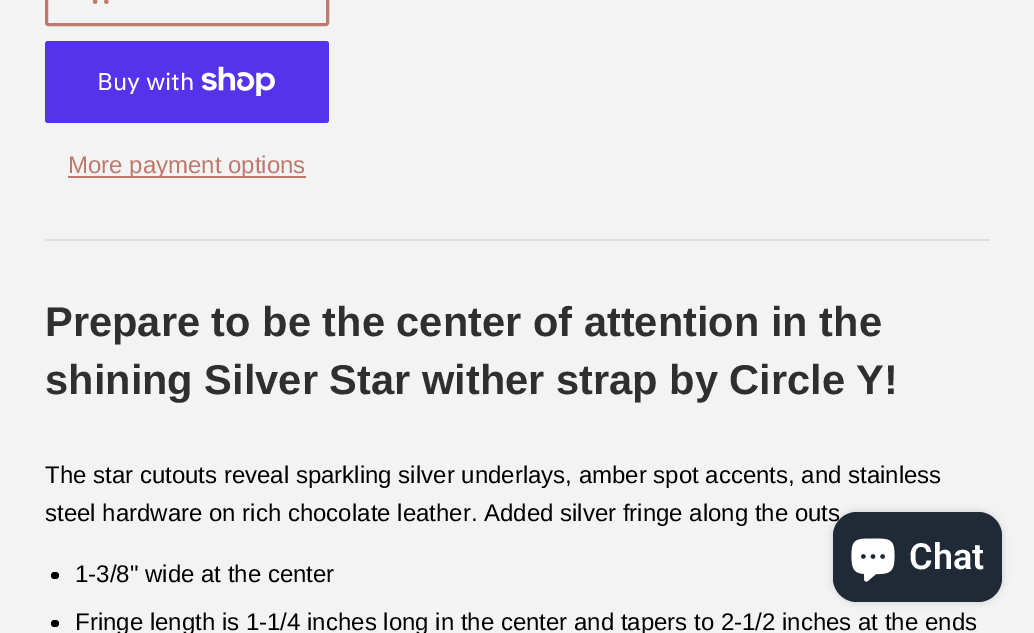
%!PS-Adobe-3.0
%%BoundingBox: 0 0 1034 633
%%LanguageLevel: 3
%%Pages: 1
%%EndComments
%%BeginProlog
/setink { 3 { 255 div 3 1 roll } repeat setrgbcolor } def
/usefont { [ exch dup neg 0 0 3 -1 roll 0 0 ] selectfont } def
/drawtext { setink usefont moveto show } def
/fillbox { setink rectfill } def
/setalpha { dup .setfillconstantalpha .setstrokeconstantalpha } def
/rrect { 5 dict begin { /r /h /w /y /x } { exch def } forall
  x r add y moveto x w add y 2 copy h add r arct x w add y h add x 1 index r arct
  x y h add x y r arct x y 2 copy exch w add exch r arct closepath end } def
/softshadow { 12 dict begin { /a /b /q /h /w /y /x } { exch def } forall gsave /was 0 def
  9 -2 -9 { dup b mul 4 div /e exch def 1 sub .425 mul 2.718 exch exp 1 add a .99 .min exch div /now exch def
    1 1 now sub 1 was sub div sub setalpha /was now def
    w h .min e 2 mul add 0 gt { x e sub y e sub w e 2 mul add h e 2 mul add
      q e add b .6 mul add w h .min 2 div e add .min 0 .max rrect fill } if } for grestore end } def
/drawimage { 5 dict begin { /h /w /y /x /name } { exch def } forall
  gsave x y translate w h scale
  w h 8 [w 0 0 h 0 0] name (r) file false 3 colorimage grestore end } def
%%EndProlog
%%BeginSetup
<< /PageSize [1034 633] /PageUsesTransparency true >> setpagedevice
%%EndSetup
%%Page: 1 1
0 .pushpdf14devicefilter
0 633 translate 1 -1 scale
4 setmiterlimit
0 0 1034 633 243 243 243 fillbox
191 120 108 setink
3 setlinewidth
46.5 -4.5 281 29 1.5 rrect stroke
(assets/img1.rgb) 92 0 17 4 drawimage
84 51 235 setink
45 41 284 82 3 rrect fill
(Buy with) 97 90 /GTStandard-Regular 24 255 255 255 drawtext
(assets/img2.rgb) 201 66 74 30 drawimage
68 176 238 2 191 120 108 fillbox
(More payment options) 68 173 /LiberationSans-Regular 24 191 120 108 drawtext
45 239 945 2 222 222 222 fillbox
(Prepare to be the center of attention in the) 45 336 /LiberationSans-Bold 41.6 47 47 47 drawtext
(shining Silver Star wither strap by Circle Y!) 45 394 /LiberationSans-Bold 41.6 47 47 47 drawtext
(The star cutouts reveal sparkling silver underlays, amber spot accents, and stainless) 45 483 /LiberationSans-Regular 24 0 0 0 drawtext
(steel hardware on rich chocolate leather. Added silver fringe along the outs) 45 521 /LiberationSans-Regular 24 0 0 0 drawtext
51 572 8 7 3.5 rrect fill
(1-3/8" wide at the center) 75 582 /LiberationSans-Regular 24 0 0 0 drawtext
51 620 8 7 3.5 rrect fill
(Fringe length is 1-1/4 inches long in the center and tapers to 2-1/2 inches at the ends) 75 630 /LiberationSans-Regular 24 0 0 0 drawtext
833 512 169 90 24 4 0.15 softshadow
32 42 54 setink
833 512 169 90 24 rrect fill
(assets/img3.rgb) 851 538 44 44 drawimage
(Chat) 909 569 /Roboto-SemiBold 36 255 255 255 drawtext
.poppdf14devicefilter showpage
%%EOF
